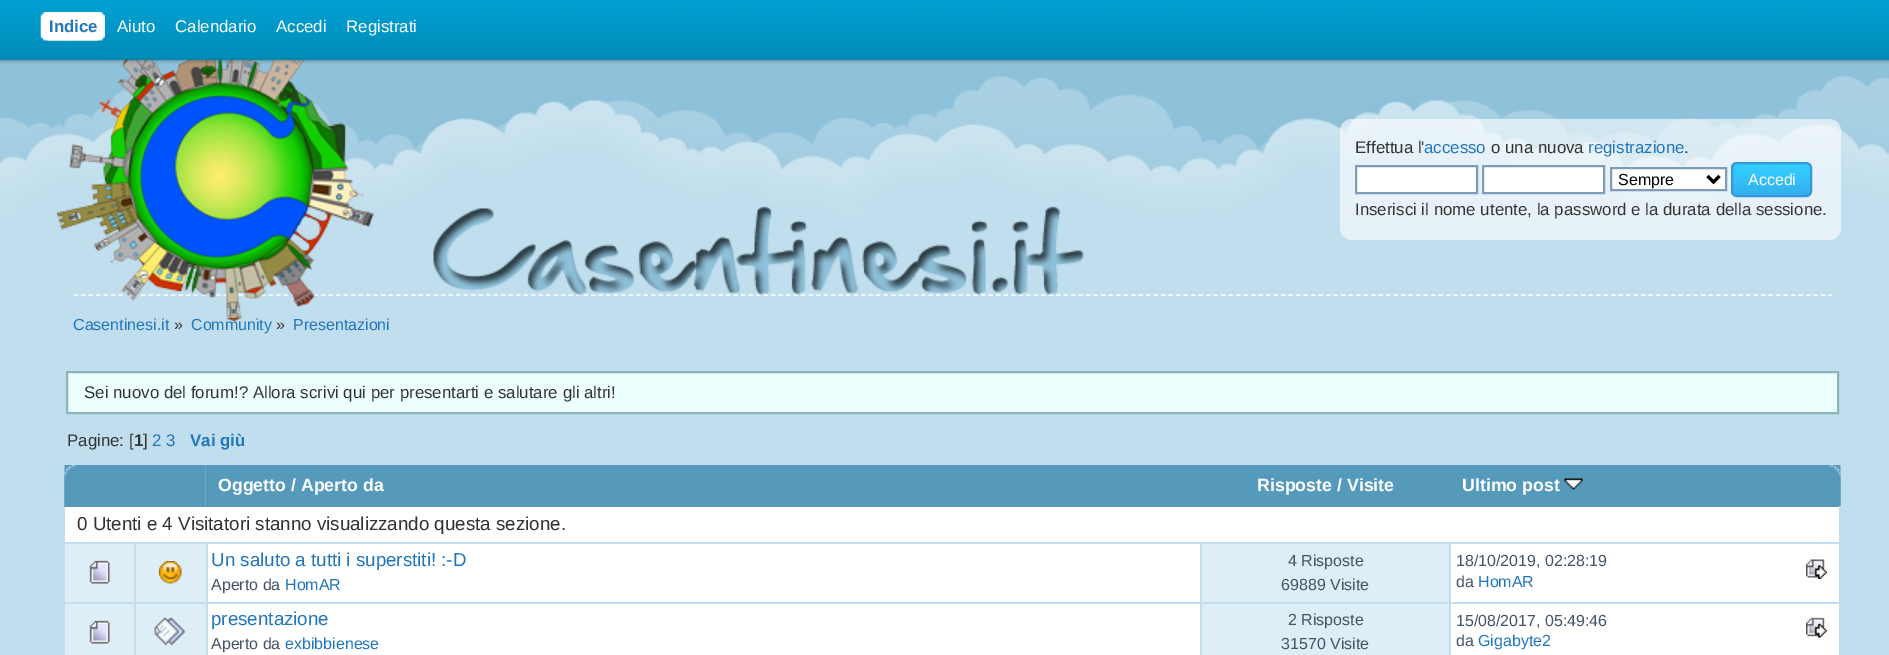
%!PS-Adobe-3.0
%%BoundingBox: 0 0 1889 655
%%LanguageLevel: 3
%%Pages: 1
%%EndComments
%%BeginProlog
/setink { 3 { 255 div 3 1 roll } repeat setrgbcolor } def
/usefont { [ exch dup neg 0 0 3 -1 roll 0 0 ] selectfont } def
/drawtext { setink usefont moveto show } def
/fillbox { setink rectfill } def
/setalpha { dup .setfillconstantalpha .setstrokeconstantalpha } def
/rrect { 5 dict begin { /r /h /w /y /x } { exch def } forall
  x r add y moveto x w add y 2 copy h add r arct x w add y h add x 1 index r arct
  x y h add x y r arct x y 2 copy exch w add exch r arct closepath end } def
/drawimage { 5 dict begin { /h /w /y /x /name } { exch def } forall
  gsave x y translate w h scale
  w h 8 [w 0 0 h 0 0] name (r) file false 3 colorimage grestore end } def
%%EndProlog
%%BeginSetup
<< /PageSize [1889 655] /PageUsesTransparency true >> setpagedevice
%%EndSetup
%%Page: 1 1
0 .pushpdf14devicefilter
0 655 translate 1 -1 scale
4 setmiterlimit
0 0 1889 655 192 222 237 fillbox
(assets/img1.rgb) 0 59 1889 158 drawimage
255 255 255 setink
1.5 setlinewidth
[4.5 3] 0 setdash
73.5 295 moveto 1831.5 295 lineto stroke
(Casentinesi.it) 73 330 /LiberationSans-Regular 16 34 118 187 drawtext
(Community) 191 330 /LiberationSans-Regular 16 34 118 187 drawtext
(Presentazioni) 293 330 /LiberationSans-Regular 16 34 118 187 drawtext
(assets/img5.rgb) 57 59 317 262 drawimage
(assets/img2.rgb) 0 0 1889 64 drawimage
(assets/img3.rgb) 48 12 57 29 drawimage
(assets/img4.rgb) 40 12 58 29 drawimage
(Indice) 49 32 /LiberationSans-Bold 16.85 34 118 187 drawtext
(Aiuto) 117 32 /LiberationSans-Regular 16.85 255 255 255 drawtext
(Calendario) 175 32 /LiberationSans-Regular 16.85 255 255 255 drawtext
(Accedi) 276 32 /LiberationSans-Regular 16.85 255 255 255 drawtext
(Registrati) 346 32 /LiberationSans-Regular 16.85 255 255 255 drawtext
(assets/img6.rgb) 433 206 651 90 drawimage
0.6 setalpha
1340 119 501 121 12 rrect fill
1 setalpha
(Effettua l') 1355 153 /LiberationSans-Regular 16.85 51 51 51 drawtext
(accesso) 1424 153 /LiberationSans-Regular 16.85 34 118 187 drawtext
(o una nuova) 1491 153 /LiberationSans-Regular 16.85 51 51 51 drawtext
(registrazione) 1588 153 /LiberationSans-Regular 16.85 34 118 187 drawtext
(.) 1684 153 /LiberationSans-Regular 16.85 51 51 51 drawtext
255 255 255 setink
1356 166 moveto 1477 166 lineto 1477 193 lineto 1356 193 lineto closepath gsave fill grestore
127 157 185 setink
2 setlinewidth
[] 0 setdash
stroke
255 255 255 setink
1483 166 moveto 1604 166 lineto 1604 193 lineto 1483 193 lineto closepath gsave fill grestore
127 157 185 setink
stroke
255 255 255 setink
1611 168 moveto 1726 168 lineto 1726 190 lineto 1611 190 lineto closepath gsave fill grestore
127 157 185 setink
stroke
0 0 0 setink
3 setlinewidth
1707.5 176 moveto 1713.5 182 lineto 1719.5 176 lineto stroke
(Sempre) 1618 185 /LiberationSans-Regular 16 0 0 0 drawtext
(assets/img7.rgb) 1731 163 81 34 drawimage
51 153 221 setink
2 setlinewidth
1732 163 79 33 5 rrect stroke
(Accedi) 1748 185 /LiberationSans-Regular 16 255 255 255 drawtext
(Inserisci il nome utente, la password e la durata della sessione.) 1355 215 /LiberationSans-Regular 16.85 51 51 51 drawtext
(») 174 330 /LiberationSans-Regular 16 51 51 51 drawtext
(») 276 330 /LiberationSans-Regular 16 51 51 51 drawtext
237 254 255 setink
67 372 moveto 1838 372 lineto 1838 413 lineto 67 413 lineto closepath gsave fill grestore
137 183 185 setink
stroke
(Sei nuovo del forum!? Allora scrivi qui per presentarti e salutare gli altri!) 84 398 /LiberationSans-Regular 16.85 51 51 51 drawtext
(Pagine: [) 67 446 /LiberationSans-Regular 16.85 51 51 51 drawtext
(1) 134 446 /LiberationSans-Bold 16.85 51 51 51 drawtext
(]) 143 446 /LiberationSans-Regular 16.85 51 51 51 drawtext
(2 3) 152 446 /LiberationSans-Regular 16.85 34 118 187 drawtext
(Vai giù) 190 446 /LiberationSans-Bold 16.85 34 118 187 drawtext
205 465 1244 42 85 153 187 fillbox
(assets/img8.rgb) 64 465 142 42 drawimage
(Oggetto / Aperto da) 218 491 /LiberationSans-Bold 17.75 255 255 255 drawtext
(Risposte / Visite) 1257 491 /LiberationSans-Bold 17.75 255 255 255 drawtext
(assets/img9.rgb) 1449 465 392 42 drawimage
(Ultimo post) 1462 491 /LiberationSans-Bold 17.75 255 255 255 drawtext
(assets/img10.rgb) 1564 478 19 12 drawimage
65 507 1774 35 255 255 255 fillbox
1839 506 2 1 192 222 237 fillbox
(0 Utenti e 4 Visitatori stanno visualizzando questa sezione.) 77 530 /LiberationSans-Regular 18.75 51 51 51 drawtext
65 544 69 58 221 238 246 fillbox
(assets/img11.rgb) 89 560 21 24 drawimage
136 544 70 58 221 238 246 fillbox
(assets/img12.rgb) 159 561 23 23 drawimage
208 544 992 58 255 255 255 fillbox
(Un saluto a tutti i superstiti! :-D) 211 566 /LiberationSans-Regular 18.75 34 118 187 drawtext
(Aperto da) 211 590 /LiberationSans-Regular 16 68 85 102 drawtext
(HomAR) 285 590 /LiberationSans-Regular 16 34 118 187 drawtext
1202 544 247 58 221 238 246 fillbox
(4 Risposte) 1288 566 /LiberationSans-Regular 16 68 85 102 drawtext
(69889 Visite) 1281 590 /LiberationSans-Regular 16 68 85 102 drawtext
1451 544 388 58 255 255 255 fillbox
(18/10/2019, 02:28:19) 1456 566 /LiberationSans-Regular 16 68 85 102 drawtext
(assets/img13.rgb) 1806 559 21 20 drawimage
(da) 1456 587 /LiberationSans-Regular 16 68 85 102 drawtext
(HomAR) 1478 587 /LiberationSans-Regular 16 34 118 187 drawtext
65 604 69 51 221 238 246 fillbox
(assets/img11.rgb) 89 620 21 24 drawimage
136 604 70 51 221 238 246 fillbox
(assets/img14.rgb) 154 617 31 29 drawimage
208 604 992 51 255 255 255 fillbox
(presentazione) 211 625 /LiberationSans-Regular 18.75 34 118 187 drawtext
(Aperto da) 211 649 /LiberationSans-Regular 16 68 85 102 drawtext
(exbibbienese) 285 649 /LiberationSans-Regular 16 34 118 187 drawtext
1202 604 247 51 221 238 246 fillbox
(2 Risposte) 1288 625 /LiberationSans-Regular 16 68 85 102 drawtext
(31570 Visite) 1281 649 /LiberationSans-Regular 16 68 85 102 drawtext
1451 604 388 51 255 255 255 fillbox
(15/08/2017, 05:49:46) 1456 626 /LiberationSans-Regular 16 68 85 102 drawtext
(assets/img15.rgb) 1806 617 21 21 drawimage
(da) 1456 646 /LiberationSans-Regular 16 68 85 102 drawtext
(Gigabyte2) 1478 646 /LiberationSans-Regular 16 34 118 187 drawtext
.poppdf14devicefilter showpage
%%EOF
